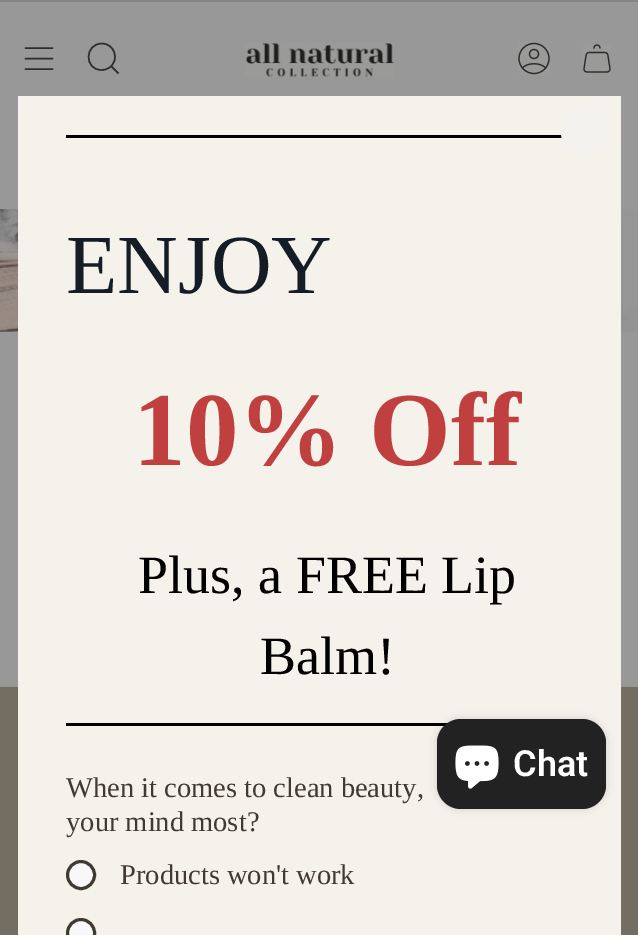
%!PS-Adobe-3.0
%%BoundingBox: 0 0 638 935
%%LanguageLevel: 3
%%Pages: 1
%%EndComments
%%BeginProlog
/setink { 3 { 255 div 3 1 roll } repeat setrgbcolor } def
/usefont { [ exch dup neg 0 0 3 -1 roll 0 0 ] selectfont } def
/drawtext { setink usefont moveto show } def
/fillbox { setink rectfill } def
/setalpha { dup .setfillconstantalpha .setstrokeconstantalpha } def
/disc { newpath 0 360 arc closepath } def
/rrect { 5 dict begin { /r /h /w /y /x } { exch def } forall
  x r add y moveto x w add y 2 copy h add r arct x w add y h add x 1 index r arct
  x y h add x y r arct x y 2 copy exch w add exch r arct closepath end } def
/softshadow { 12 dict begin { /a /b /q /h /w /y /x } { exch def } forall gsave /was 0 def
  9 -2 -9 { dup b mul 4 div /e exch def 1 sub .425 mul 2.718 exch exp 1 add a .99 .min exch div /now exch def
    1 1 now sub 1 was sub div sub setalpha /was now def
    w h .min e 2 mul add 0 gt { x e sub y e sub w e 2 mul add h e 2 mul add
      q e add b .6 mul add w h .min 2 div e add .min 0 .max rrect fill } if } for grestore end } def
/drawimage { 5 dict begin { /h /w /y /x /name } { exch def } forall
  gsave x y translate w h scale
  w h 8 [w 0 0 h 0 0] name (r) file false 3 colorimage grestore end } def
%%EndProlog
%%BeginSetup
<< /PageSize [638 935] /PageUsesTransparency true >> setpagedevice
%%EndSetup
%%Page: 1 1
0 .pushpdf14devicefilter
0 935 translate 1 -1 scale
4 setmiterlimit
0 0 638 935 152 152 152 fillbox
0 0 638 2 132 132 131 fillbox
45 45 45 setink
1.5 setlinewidth
1 setlinecap
1 setlinejoin
25.5 48 moveto 52.5 48 lineto 25.5 58.5 moveto 52.5 58.5 lineto 25.5 69 moveto 52.5 69 lineto stroke
0 setlinecap
0 setlinejoin
102 43.5 moveto 114.5 43.5 120 60 109.5 67.5 curveto 107 69.5 104 70 101 70 curveto 84 69.5 84.5 43.5 102 43.5 curveto closepath 111 66 moveto 118.5 73.5 lineto stroke
(assets/img1.rgb) 245 43 149 34 drawimage
(assets/img2.rgb) 518 42 32 33 drawimage
(assets/img3.rgb) 583 44 28 29 drawimage
(assets/img4.rgb) 0 209 638 123 drawimage
0 687 638 248 116 110 98 fillbox
18 96 603 839 245 242 236 fillbox
66 135 496 3 0 0 0 fillbox
243 242 238 setink
585 132 24 disc fill
(ENJOY) 66 293 /LiberationSerif-Regular 84 20 29 38 drawtext
(10% Off) 133 465 /LiberationSerif-Bold 105 192 64 64 drawtext
(Plus, a FREE Lip) 138 593 /LiberationSerif-Regular 54 0 0 0 drawtext
(Balm!) 260 674 /LiberationSerif-Regular 54 0 0 0 drawtext
66 723 382 3 0 0 0 fillbox
(When it comes to clean beauty,) 66 797 /LiberationSerif-Regular 28.5 66 58 49 drawtext
(your mind most?) 66 831 /LiberationSerif-Regular 28.5 66 58 49 drawtext
248 248 248 setink
81 875 13.5 disc gsave fill grestore
66 58 49 setink
3 setlinewidth
stroke
(Products won't work) 120 884 /LiberationSerif-Regular 28.5 66 58 49 drawtext
248 248 248 setink
81 933 13.5 disc gsave fill grestore
66 58 49 setink
stroke
0 0 0 setink
437 719 169 90 24 4 0.15 softshadow
34 34 34 setink
437 719 169 90 24 rrect fill
(assets/img5.rgb) 455 745 44 44 drawimage
(Chat) 513 776 /Roboto-SemiBold 36 255 255 255 drawtext
.poppdf14devicefilter showpage
%%EOF
